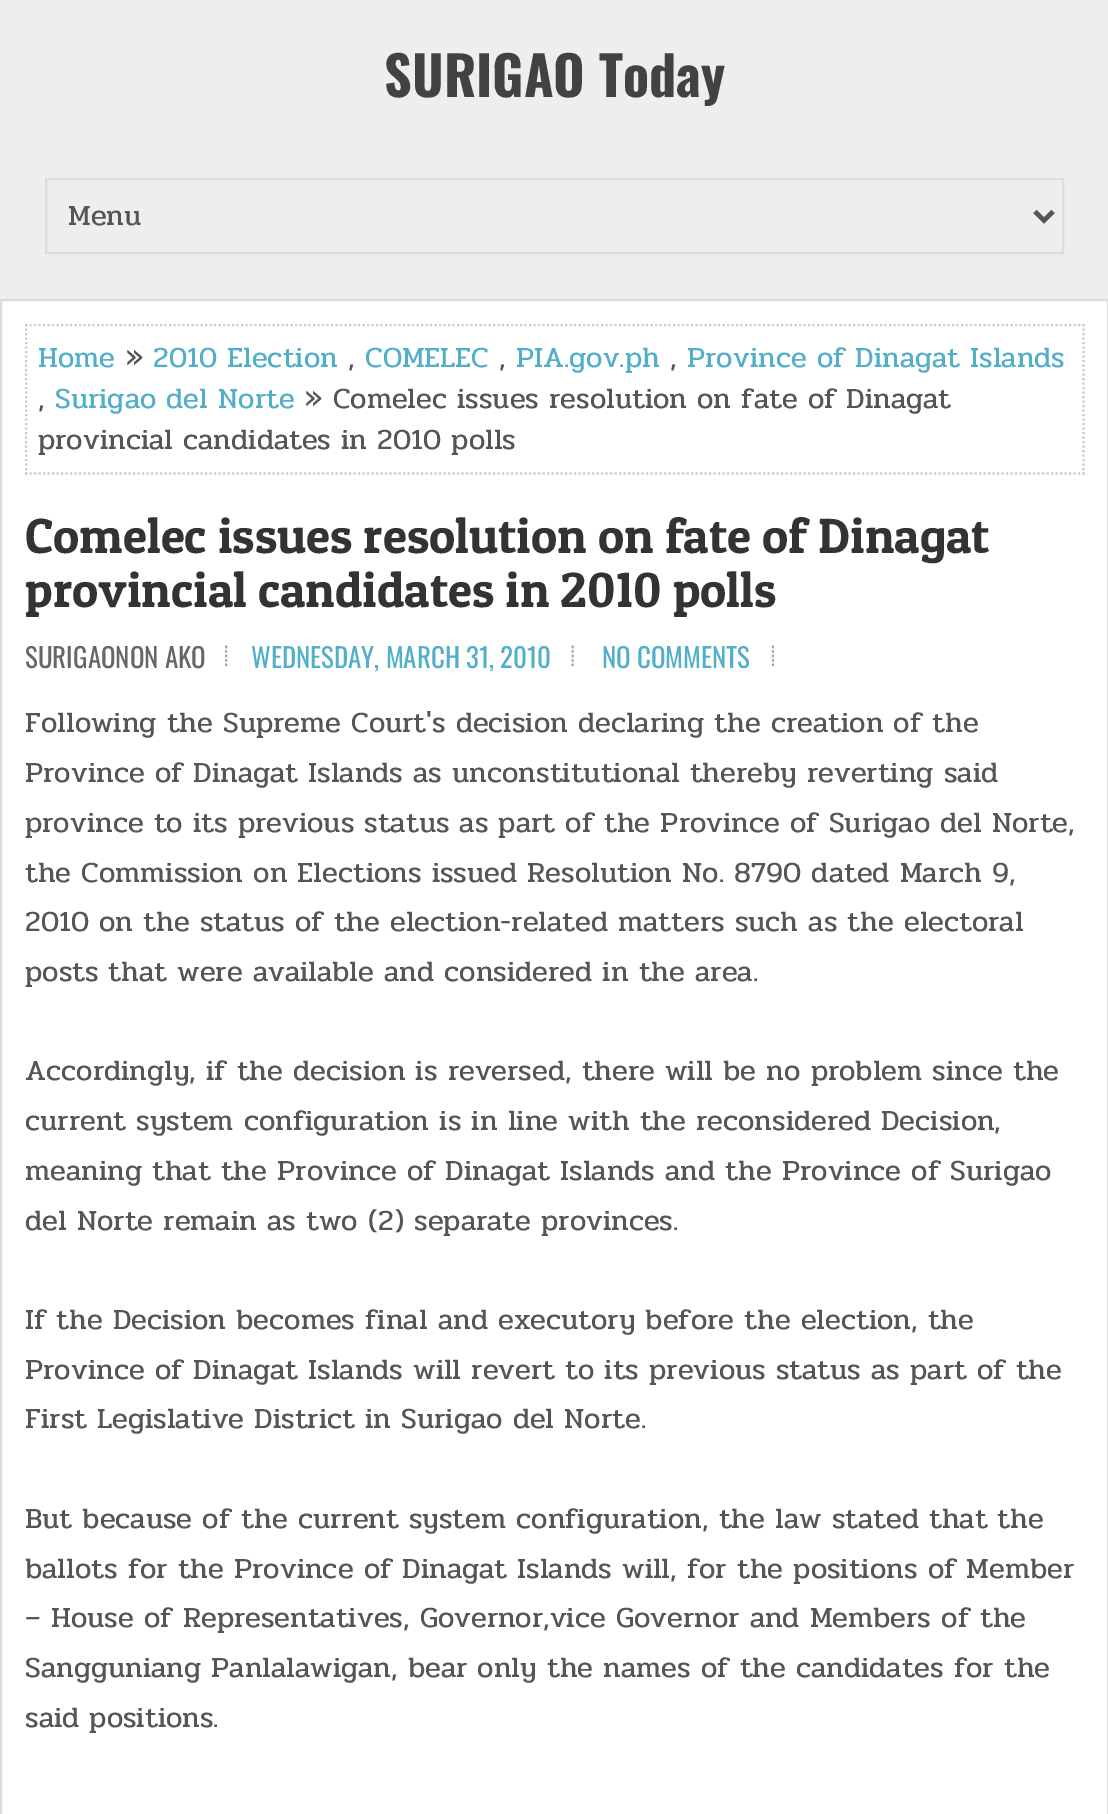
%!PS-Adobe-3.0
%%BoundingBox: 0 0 1108 1814
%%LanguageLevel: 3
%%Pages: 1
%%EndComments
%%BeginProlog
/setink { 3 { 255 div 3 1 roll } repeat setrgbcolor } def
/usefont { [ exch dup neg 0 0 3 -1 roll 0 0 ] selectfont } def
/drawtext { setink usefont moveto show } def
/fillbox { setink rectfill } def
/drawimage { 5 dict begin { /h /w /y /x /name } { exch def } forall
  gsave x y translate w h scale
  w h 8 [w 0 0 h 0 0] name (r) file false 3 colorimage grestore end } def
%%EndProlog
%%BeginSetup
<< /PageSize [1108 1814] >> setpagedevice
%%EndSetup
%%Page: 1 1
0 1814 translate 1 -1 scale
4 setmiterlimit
0 0 1108 1814 238 238 238 fillbox
(SURIGAO Today) 384 97 /Oswald-Bold 54 66 66 66 drawtext
221 221 221 setink
2 setlinewidth
46 179 1017 74 rectstroke
85 85 85 setink
4.5 setlinewidth
1035 211.5 moveto 1044 220.5 lineto 1053 211.5 lineto stroke
(Menu) 68 225 /Pridi-Regular 29.25 85 85 85 drawtext
255 255 255 setink
1 300 moveto 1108 300 lineto 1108 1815 lineto 1 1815 lineto closepath gsave fill grestore
221 221 221 setink
2 setlinewidth
stroke
gsave
25 324 1060 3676 rectclip
204 204 204 setink
2.2 setlinewidth
[2.25 2.25] 0 setdash
25 325 moveto 1084.5 325 lineto stroke
grestore
204 204 204 setink
2.2 setlinewidth
[2.25 2.25] 0 setdash
1083.5 324 moveto 1083.5 475 lineto stroke
25 473.5 moveto 1084.5 473.5 lineto stroke
gsave
25 324 1060 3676 rectclip
26 324 moveto 26 475 lineto stroke
grestore
(Home) 38 367 /Pridi-Regular 29.25 81 175 200 drawtext
(») 126 367 /Pridi-Regular 29.25 85 85 85 drawtext
(2010 Election) 153 367 /Pridi-Regular 29.25 81 175 200 drawtext
(COMELEC) 365 367 /Pridi-Regular 29.25 81 175 200 drawtext
(PIA.gov.ph) 516 367 /Pridi-Regular 29.25 81 175 200 drawtext
(Province of Dinagat Islands) 687 367 /Pridi-Regular 29.25 81 175 200 drawtext
(,) 348 367 /Pridi-Regular 29.25 85 85 85 drawtext
(,) 499 367 /Pridi-Regular 29.25 85 85 85 drawtext
(,) 670 367 /Pridi-Regular 29.25 85 85 85 drawtext
(,) 38 408 /Pridi-Regular 29.25 85 85 85 drawtext
(Surigao del Norte) 55 408 /Pridi-Regular 29.25 81 175 200 drawtext
(» Comelec issues resolution on fate of Dinagat) 305 408 /Pridi-Regular 29.25 85 85 85 drawtext
(provincial candidates in 2010 polls) 38 449 /Pridi-Regular 29.25 85 85 85 drawtext
(Comelec issues resolution on fate of Dinagat) 25 553 /PatuaOne-Regular 49.5 51 51 51 drawtext
(provincial candidates in 2010 polls) 25 607 /PatuaOne-Regular 49.5 51 51 51 drawtext
(SURIGAONON AKO) 25 668 /Oswald-Regular 27 102 102 102 drawtext
(assets/img1.rgb) 225 645 3 21 drawimage
(WEDNESDAY, MARCH 31, 2010) 251 668 /Oswald-Regular 27 81 175 200 drawtext
(assets/img2.rgb) 571 645 3 21 drawimage
(NO COMMENTS) 602 668 /Oswald-Regular 27 81 175 200 drawtext
(assets/img3.rgb) 771 645 3 21 drawimage
(Following the Supreme Court's decision declaring the creation of the) 25 732 /Pridi-Regular 29.25 85 85 85 drawtext
(Province of Dinagat Islands as unconstitutional thereby reverting said) 25 782 /Pridi-Regular 29.25 85 85 85 drawtext
(province to its previous status as part of the Province of Surigao del Norte,) 25 832 /Pridi-Regular 29.25 85 85 85 drawtext
(the Commission on Elections issued Resolution No. 8790 dated March 9,) 25 882 /Pridi-Regular 29.25 85 85 85 drawtext
(2010 on the status of the election-related matters such as the electoral) 25 931 /Pridi-Regular 29.25 85 85 85 drawtext
(posts that were available and considered in the area.) 25 981 /Pridi-Regular 29.25 85 85 85 drawtext
(Accordingly, if the decision is reversed, there will be no problem since the) 25 1080 /Pridi-Regular 29.25 85 85 85 drawtext
(current system configuration is in line with the reconsidered Decision,) 25 1130 /Pridi-Regular 29.25 85 85 85 drawtext
(meaning that the Province of Dinagat Islands and the Province of Surigao) 25 1180 /Pridi-Regular 29.25 85 85 85 drawtext
(del Norte remain as two \(2\) separate provinces.) 25 1230 /Pridi-Regular 29.25 85 85 85 drawtext
(If the Decision becomes final and executory before the election, the) 25 1329 /Pridi-Regular 29.25 85 85 85 drawtext
(Province of Dinagat Islands will revert to its previous status as part of the) 25 1379 /Pridi-Regular 29.25 85 85 85 drawtext
(First Legislative District in Surigao del Norte.) 25 1428 /Pridi-Regular 29.25 85 85 85 drawtext
(But because of the current system configuration, the law stated that the) 25 1528 /Pridi-Regular 29.25 85 85 85 drawtext
(ballots for the Province of Dinagat Islands will, for the positions of Member) 25 1578 /Pridi-Regular 29.25 85 85 85 drawtext
(– House of Representatives, Governor,vice Governor and Members of the) 25 1627 /Pridi-Regular 29.25 85 85 85 drawtext
(Sangguniang Panlalawigan, bear only the names of the candidates for the) 25 1677 /Pridi-Regular 29.25 85 85 85 drawtext
(said positions.) 25 1727 /Pridi-Regular 29.25 85 85 85 drawtext
showpage
%%EOF
